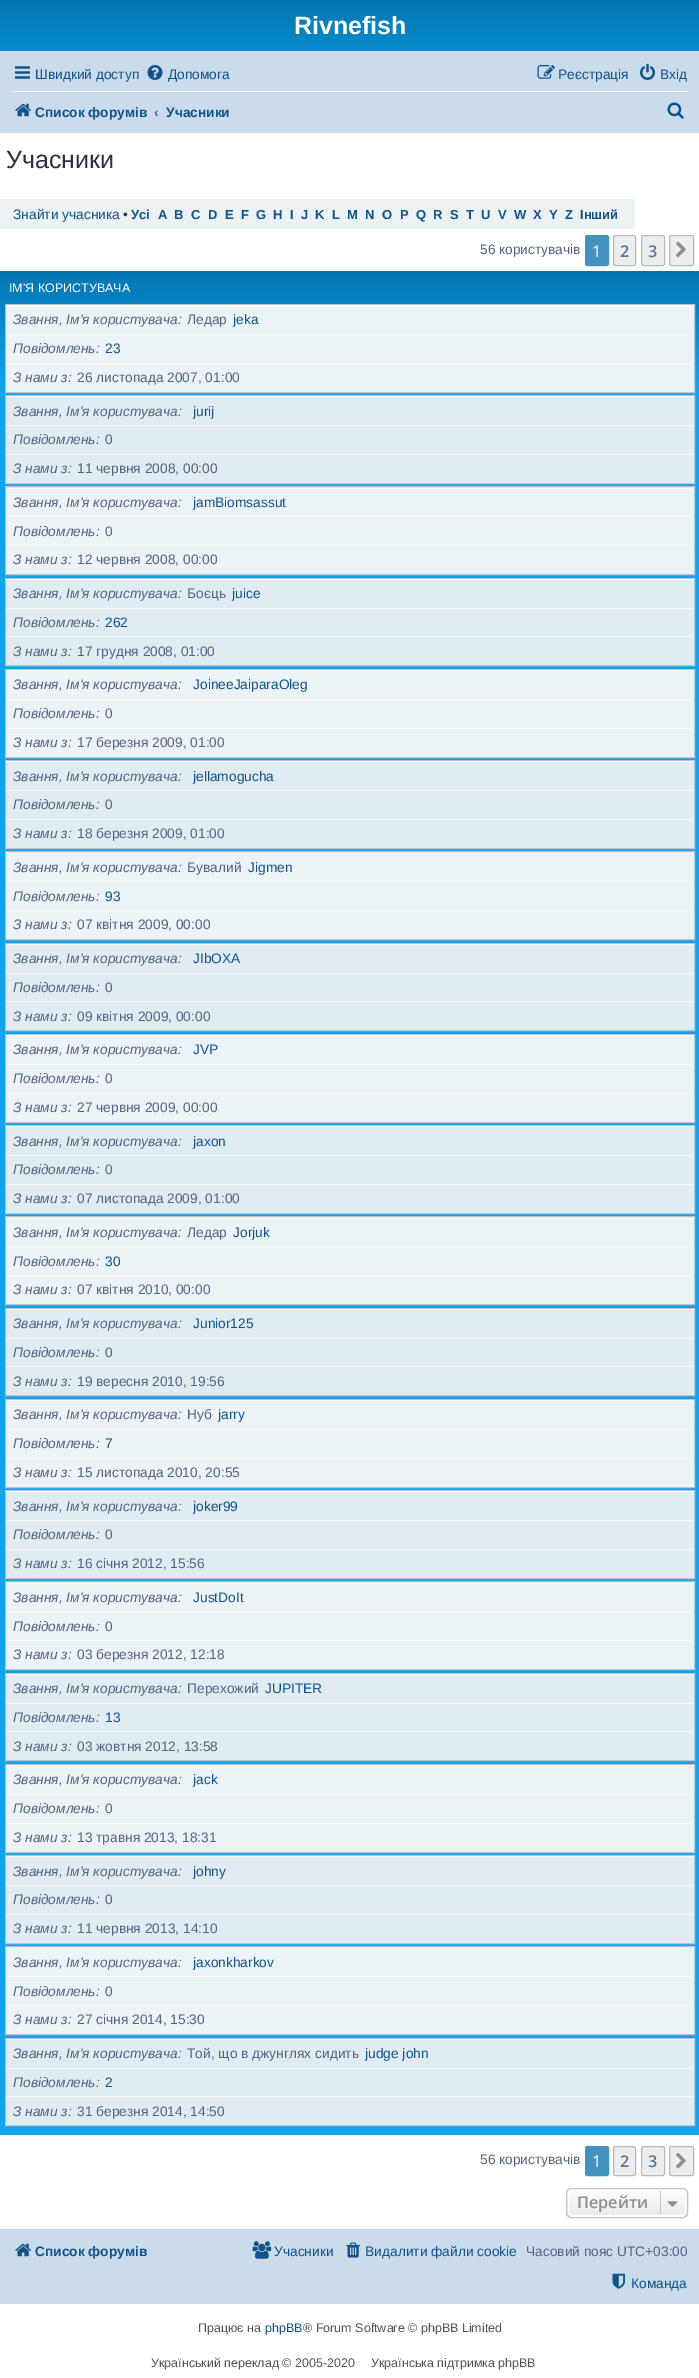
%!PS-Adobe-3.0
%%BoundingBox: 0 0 699 2378
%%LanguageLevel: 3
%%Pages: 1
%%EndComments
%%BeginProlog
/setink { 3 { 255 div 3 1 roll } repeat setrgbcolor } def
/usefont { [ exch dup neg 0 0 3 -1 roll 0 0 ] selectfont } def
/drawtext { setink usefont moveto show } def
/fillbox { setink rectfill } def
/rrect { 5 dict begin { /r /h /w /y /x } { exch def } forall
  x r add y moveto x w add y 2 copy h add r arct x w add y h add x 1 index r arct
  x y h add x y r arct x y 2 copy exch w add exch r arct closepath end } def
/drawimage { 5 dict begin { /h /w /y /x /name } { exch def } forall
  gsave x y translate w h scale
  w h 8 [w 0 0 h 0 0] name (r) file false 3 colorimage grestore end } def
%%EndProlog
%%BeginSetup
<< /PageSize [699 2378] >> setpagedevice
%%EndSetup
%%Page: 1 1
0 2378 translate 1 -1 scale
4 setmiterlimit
0 0 699 2378 255 255 255 fillbox
gsave 0 0 moveto 699 0 lineto 699 51 lineto 0 51 lineto closepath clip newpath
<< /ShadingType 2 /ColorSpace /DeviceRGB /Coords [350 -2.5 350 112] /Extend [true true] /Function << /FunctionType 3 /Domain [0 1] /Functions [<< /FunctionType 2 /Domain [0 1] /C0 [0.416 0.808 1] /C1 [0 0.463 0.694] /N 1 >> << /FunctionType 2 /Domain [0 1] /C0 [0 0.463 0.694] /C1 [0.071 0.639 0.922] /N 1 >>] /Bounds [0.02] /Encode [0 1 0 1] >> >> shfill grestore
(Rivnefish) 294 34 /LiberationSans-Bold 25 255 255 255 drawtext
0 51 699 82 202 220 235 fillbox
(assets/img1.rgb) 15 66 15 13 drawimage
(Швидкий доступ) 35 79 /LiberationSans-Regular 13.75 16 82 137 drawtext
(assets/img2.rgb) 147 65 16 15 drawimage
(Допомога) 168 79 /LiberationSans-Regular 13.75 16 82 137 drawtext
(assets/img3.rgb) 537 65 18 14 drawimage
(Реєстрація) 558 79 /LiberationSans-Regular 13.75 16 82 137 drawtext
(assets/img4.rgb) 640 63 15 17 drawimage
(Вхід) 660 79 /LiberationSans-Regular 13.75 16 82 137 drawtext
13 91 675 1 255 255 255 fillbox
(assets/img5.rgb) 15 103 16 14 drawimage
(Список форумів) 35 117 /LiberationSans-Bold 13.75 16 82 137 drawtext
(‹) 154 117 /LiberationSans-Bold 13.75 83 100 130 drawtext
(Учасники) 166 117 /LiberationSans-Bold 13.75 16 82 137 drawtext
(assets/img6.rgb) 667 102 17 17 drawimage
(Учасники) 6 168 /LiberationSans-Regular 25 40 49 63 drawtext
0 199 635 30 236 241 243 fillbox
(Знайти учасника) 13 219 /LiberationSans-Regular 13.75 16 82 137 drawtext
(•) 123 219 /LiberationSans-Regular 13.75 40 49 63 drawtext
(Усі) 131 219 /LiberationSans-Bold 13 16 82 137 drawtext
(A) 158 219 /LiberationSans-Bold 13 16 82 137 drawtext
(B) 174 219 /LiberationSans-Bold 13 16 82 137 drawtext
(C) 191 219 /LiberationSans-Bold 13 16 82 137 drawtext
(D) 208 219 /LiberationSans-Bold 13 16 82 137 drawtext
(E) 225 219 /LiberationSans-Bold 13 16 82 137 drawtext
(F) 241 219 /LiberationSans-Bold 13 16 82 137 drawtext
(G) 256 219 /LiberationSans-Bold 13 16 82 137 drawtext
(H) 273 219 /LiberationSans-Bold 13 16 82 137 drawtext
(I) 290 219 /LiberationSans-Bold 13 16 82 137 drawtext
(J) 301 219 /LiberationSans-Bold 13 16 82 137 drawtext
(K) 315 219 /LiberationSans-Bold 13 16 82 137 drawtext
(L) 332 219 /LiberationSans-Bold 13 16 82 137 drawtext
(M) 347 219 /LiberationSans-Bold 13 16 82 137 drawtext
(N) 365 219 /LiberationSans-Bold 13 16 82 137 drawtext
(O) 382 219 /LiberationSans-Bold 13 16 82 137 drawtext
(P) 400 219 /LiberationSans-Bold 13 16 82 137 drawtext
(Q) 416 219 /LiberationSans-Bold 13 16 82 137 drawtext
(R) 433 219 /LiberationSans-Bold 13 16 82 137 drawtext
(S) 450 219 /LiberationSans-Bold 13 16 82 137 drawtext
(T) 466 219 /LiberationSans-Bold 13 16 82 137 drawtext
(U) 481 219 /LiberationSans-Bold 13 16 82 137 drawtext
(V) 498 219 /LiberationSans-Bold 13 16 82 137 drawtext
(W) 514 219 /LiberationSans-Bold 13 16 82 137 drawtext
(X) 533 219 /LiberationSans-Bold 13 16 82 137 drawtext
(Y) 549 219 /LiberationSans-Bold 13 16 82 137 drawtext
(Z) 565 219 /LiberationSans-Bold 13 16 82 137 drawtext
(Інший) 580 219 /LiberationSans-Bold 13 16 82 137 drawtext
(56 користувачів) 480 254 /LiberationSans-Regular 13.75 83 100 130 drawtext
70 146 191 setink
585.5 235.5 23 30 2 rrect gsave fill grestore
stroke
(1) 592 257 /OpenSans-Regular 16.25 255 255 255 drawtext
236 237 238 setink
613.5 235.5 22 30 2 rrect gsave fill grestore
180 186 192 setink
stroke
(2) 620 257 /OpenSans-SemiBold 16.25 92 117 140 drawtext
236 237 238 setink
641.5 235.5 23 30 2 rrect gsave fill grestore
180 186 192 setink
stroke
(3) 648 257 /OpenSans-SemiBold 16.25 92 117 140 drawtext
236 237 238 setink
669.5 235.5 24 30 2 rrect gsave fill grestore
180 186 192 setink
stroke
(assets/img7.rgb) 676 241 10 17 drawimage
gsave 0 271 moveto 699 271 lineto 699 2135 lineto 0 2135 lineto closepath clip newpath
<< /ShadingType 2 /ColorSpace /DeviceRGB /Coords [350 271 350 2135] /Extend [true true] /Function << /FunctionType 3 /Domain [0 1] /Functions [<< /FunctionType 2 /Domain [0 1] /C0 [0 0.463 0.694] /C1 [0.071 0.639 0.922] /N 1 >> << /FunctionType 2 /Domain [0 1] /C0 [0.071 0.639 0.922] /C1 [0.071 0.639 0.922] /N 1 >>] /Bounds [0.06] /Encode [0 1 0 1] >> >> shfill grestore
(ІМ'Я КОРИСТУВАЧА) 9 292 /LiberationSans-Regular 12.5 255 255 255 drawtext
6 306 688 86 236 243 247 fillbox
191 193 207 setink
5.5 304.5 689 88 rectstroke
6 305 688 1 250 250 250 fillbox
(Звання, Ім'я користувача:) 13 324 /LiberationSans-Italic 13.75 83 100 130 drawtext
(Ледар) 187 324 /LiberationSans-Regular 13.75 83 100 130 drawtext
(jeka) 233 324 /LiberationSans-Regular 13.75 16 82 137 drawtext
6 334 688 1 250 250 250 fillbox
(Повідомлень:) 13 353 /LiberationSans-Italic 13.75 83 100 130 drawtext
(23) 105 353 /LiberationSans-Regular 13.75 16 82 137 drawtext
6 363 688 1 250 250 250 fillbox
(З нами з:) 13 382 /LiberationSans-Italic 13.75 83 100 130 drawtext
(26 листопада 2007, 01:00) 77 382 /LiberationSans-Regular 13.75 83 100 130 drawtext
6 397 688 86 225 235 242 fillbox
191 193 207 setink
5.5 395.5 689 88 rectstroke
6 396 688 1 250 250 250 fillbox
(Звання, Ім'я користувача:) 13 416 /LiberationSans-Italic 13.75 83 100 130 drawtext
(jurij) 193 416 /LiberationSans-Regular 13.75 16 82 137 drawtext
6 425 688 1 250 250 250 fillbox
(Повідомлень:) 13 444 /LiberationSans-Italic 13.75 83 100 130 drawtext
(0) 105 444 /LiberationSans-Regular 13.75 83 100 130 drawtext
6 454 688 1 250 250 250 fillbox
(З нами з:) 13 473 /LiberationSans-Italic 13.75 83 100 130 drawtext
(11 червня 2008, 00:00) 77 473 /LiberationSans-Regular 13.75 83 100 130 drawtext
236 243 247 setink
5.5 486.5 moveto 694.5 486.5 lineto 694.5 574.5 lineto 5.5 574.5 lineto closepath gsave fill grestore
191 193 207 setink
stroke
6 488 688 1 250 250 250 fillbox
(Звання, Ім'я користувача:) 13 507 /LiberationSans-Italic 13.75 83 100 130 drawtext
(jamBiomsassut) 193 507 /LiberationSans-Regular 13.75 16 82 137 drawtext
6 516 688 1 250 250 250 fillbox
(Повідомлень:) 13 536 /LiberationSans-Italic 13.75 83 100 130 drawtext
(0) 105 536 /LiberationSans-Regular 13.75 83 100 130 drawtext
6 545 688 1 250 250 250 fillbox
(З нами з:) 13 564 /LiberationSans-Italic 13.75 83 100 130 drawtext
(12 червня 2008, 00:00) 77 564 /LiberationSans-Regular 13.75 83 100 130 drawtext
6 580 688 85 225 235 242 fillbox
191 193 207 setink
5.5 578.5 689 87 rectstroke
6 579 688 1 250 250 250 fillbox
(Звання, Ім'я користувача:) 13 598 /LiberationSans-Italic 13.75 83 100 130 drawtext
(Боєць) 187 598 /LiberationSans-Regular 13.75 83 100 130 drawtext
(juice) 232 598 /LiberationSans-Regular 13.75 16 82 137 drawtext
6 608 688 1 250 250 250 fillbox
(Повідомлень:) 13 627 /LiberationSans-Italic 13.75 83 100 130 drawtext
(262) 105 627 /LiberationSans-Regular 13.75 16 82 137 drawtext
6 636 688 1 250 250 250 fillbox
(З нами з:) 13 656 /LiberationSans-Italic 13.75 83 100 130 drawtext
(17 грудня 2008, 01:00) 77 656 /LiberationSans-Regular 13.75 83 100 130 drawtext
6 671 688 86 236 243 247 fillbox
191 193 207 setink
5.5 669.5 689 88 rectstroke
6 670 688 1 250 250 250 fillbox
(Звання, Ім'я користувача:) 13 689 /LiberationSans-Italic 13.75 83 100 130 drawtext
(JoineeJaiparaOleg) 193 689 /LiberationSans-Regular 13.75 16 82 137 drawtext
6 699 688 1 250 250 250 fillbox
(Повідомлень:) 13 718 /LiberationSans-Italic 13.75 83 100 130 drawtext
(0) 105 718 /LiberationSans-Regular 13.75 83 100 130 drawtext
6 728 688 1 250 250 250 fillbox
(З нами з:) 13 747 /LiberationSans-Italic 13.75 83 100 130 drawtext
(17 березня 2009, 01:00) 77 747 /LiberationSans-Regular 13.75 83 100 130 drawtext
6 762 688 86 225 235 242 fillbox
191 193 207 setink
5.5 760.5 689 88 rectstroke
6 761 688 1 250 250 250 fillbox
(Звання, Ім'я користувача:) 13 781 /LiberationSans-Italic 13.75 83 100 130 drawtext
(jellamogucha) 193 781 /LiberationSans-Regular 13.75 16 82 137 drawtext
6 790 688 1 250 250 250 fillbox
(Повідомлень:) 13 809 /LiberationSans-Italic 13.75 83 100 130 drawtext
(0) 105 809 /LiberationSans-Regular 13.75 83 100 130 drawtext
6 819 688 1 250 250 250 fillbox
(З нами з:) 13 838 /LiberationSans-Italic 13.75 83 100 130 drawtext
(18 березня 2009, 01:00) 77 838 /LiberationSans-Regular 13.75 83 100 130 drawtext
236 243 247 setink
5.5 851.5 moveto 694.5 851.5 lineto 694.5 939.5 lineto 5.5 939.5 lineto closepath gsave fill grestore
191 193 207 setink
stroke
6 853 688 1 250 250 250 fillbox
(Звання, Ім'я користувача:) 13 872 /LiberationSans-Italic 13.75 83 100 130 drawtext
(Бувалий) 187 872 /LiberationSans-Regular 13.75 83 100 130 drawtext
(Jigmen) 248 872 /LiberationSans-Regular 13.75 16 82 137 drawtext
6 881 688 1 250 250 250 fillbox
(Повідомлень:) 13 901 /LiberationSans-Italic 13.75 83 100 130 drawtext
(93) 105 901 /LiberationSans-Regular 13.75 16 82 137 drawtext
6 910 688 1 250 250 250 fillbox
(З нами з:) 13 929 /LiberationSans-Italic 13.75 83 100 130 drawtext
(07 квітня 2009, 00:00) 77 929 /LiberationSans-Regular 13.75 83 100 130 drawtext
6 945 688 85 225 235 242 fillbox
191 193 207 setink
5.5 943.5 689 87 rectstroke
6 944 688 1 250 250 250 fillbox
(Звання, Ім'я користувача:) 13 963 /LiberationSans-Italic 13.75 83 100 130 drawtext
(JIbOXA) 193 963 /LiberationSans-Regular 13.75 16 82 137 drawtext
6 973 688 1 250 250 250 fillbox
(Повідомлень:) 13 992 /LiberationSans-Italic 13.75 83 100 130 drawtext
(0) 105 992 /LiberationSans-Regular 13.75 83 100 130 drawtext
6 1001 688 1 250 250 250 fillbox
(З нами з:) 13 1021 /LiberationSans-Italic 13.75 83 100 130 drawtext
(09 квітня 2009, 00:00) 77 1021 /LiberationSans-Regular 13.75 83 100 130 drawtext
6 1036 688 86 236 243 247 fillbox
191 193 207 setink
5.5 1034.5 689 88 rectstroke
6 1035 688 1 250 250 250 fillbox
(Звання, Ім'я користувача:) 13 1054 /LiberationSans-Italic 13.75 83 100 130 drawtext
(JVP) 193 1054 /LiberationSans-Regular 13.75 16 82 137 drawtext
6 1064 688 1 250 250 250 fillbox
(Повідомлень:) 13 1083 /LiberationSans-Italic 13.75 83 100 130 drawtext
(0) 105 1083 /LiberationSans-Regular 13.75 83 100 130 drawtext
6 1093 688 1 250 250 250 fillbox
(З нами з:) 13 1112 /LiberationSans-Italic 13.75 83 100 130 drawtext
(27 червня 2009, 00:00) 77 1112 /LiberationSans-Regular 13.75 83 100 130 drawtext
6 1127 688 86 225 235 242 fillbox
191 193 207 setink
5.5 1125.5 689 88 rectstroke
6 1126 688 1 250 250 250 fillbox
(Звання, Ім'я користувача:) 13 1146 /LiberationSans-Italic 13.75 83 100 130 drawtext
(jaxon) 193 1146 /LiberationSans-Regular 13.75 16 82 137 drawtext
6 1155 688 1 250 250 250 fillbox
(Повідомлень:) 13 1174 /LiberationSans-Italic 13.75 83 100 130 drawtext
(0) 105 1174 /LiberationSans-Regular 13.75 83 100 130 drawtext
6 1184 688 1 250 250 250 fillbox
(З нами з:) 13 1203 /LiberationSans-Italic 13.75 83 100 130 drawtext
(07 листопада 2009, 01:00) 77 1203 /LiberationSans-Regular 13.75 83 100 130 drawtext
236 243 247 setink
5.5 1216.5 moveto 694.5 1216.5 lineto 694.5 1304.5 lineto 5.5 1304.5 lineto closepath gsave fill grestore
191 193 207 setink
stroke
6 1218 688 1 250 250 250 fillbox
(Звання, Ім'я користувача:) 13 1237 /LiberationSans-Italic 13.75 83 100 130 drawtext
(Ледар) 187 1237 /LiberationSans-Regular 13.75 83 100 130 drawtext
(Jorjuk) 233 1237 /LiberationSans-Regular 13.75 16 82 137 drawtext
6 1246 688 1 250 250 250 fillbox
(Повідомлень:) 13 1266 /LiberationSans-Italic 13.75 83 100 130 drawtext
(30) 105 1266 /LiberationSans-Regular 13.75 16 82 137 drawtext
6 1275 688 1 250 250 250 fillbox
(З нами з:) 13 1294 /LiberationSans-Italic 13.75 83 100 130 drawtext
(07 квітня 2010, 00:00) 77 1294 /LiberationSans-Regular 13.75 83 100 130 drawtext
6 1310 688 85 225 235 242 fillbox
191 193 207 setink
5.5 1308.5 689 87 rectstroke
6 1309 688 1 250 250 250 fillbox
(Звання, Ім'я користувача:) 13 1328 /LiberationSans-Italic 13.75 83 100 130 drawtext
(Junior125) 193 1328 /LiberationSans-Regular 13.75 16 82 137 drawtext
6 1338 688 1 250 250 250 fillbox
(Повідомлень:) 13 1357 /LiberationSans-Italic 13.75 83 100 130 drawtext
(0) 105 1357 /LiberationSans-Regular 13.75 83 100 130 drawtext
6 1366 688 1 250 250 250 fillbox
(З нами з:) 13 1386 /LiberationSans-Italic 13.75 83 100 130 drawtext
(19 вересня 2010, 19:56) 77 1386 /LiberationSans-Regular 13.75 83 100 130 drawtext
6 1401 688 86 236 243 247 fillbox
191 193 207 setink
5.5 1399.5 689 88 rectstroke
6 1400 688 1 250 250 250 fillbox
(Звання, Ім'я користувача:) 13 1419 /LiberationSans-Italic 13.75 83 100 130 drawtext
(Нуб) 187 1419 /LiberationSans-Regular 13.75 83 100 130 drawtext
(jarry) 218 1419 /LiberationSans-Regular 13.75 16 82 137 drawtext
6 1429 688 1 250 250 250 fillbox
(Повідомлень:) 13 1448 /LiberationSans-Italic 13.75 83 100 130 drawtext
(7) 105 1448 /LiberationSans-Regular 13.75 16 82 137 drawtext
6 1458 688 1 250 250 250 fillbox
(З нами з:) 13 1477 /LiberationSans-Italic 13.75 83 100 130 drawtext
(15 листопада 2010, 20:55) 77 1477 /LiberationSans-Regular 13.75 83 100 130 drawtext
6 1492 688 86 225 235 242 fillbox
191 193 207 setink
5.5 1490.5 689 88 rectstroke
6 1491 688 1 250 250 250 fillbox
(Звання, Ім'я користувача:) 13 1511 /LiberationSans-Italic 13.75 83 100 130 drawtext
(joker99) 193 1511 /LiberationSans-Regular 13.75 16 82 137 drawtext
6 1520 688 1 250 250 250 fillbox
(Повідомлень:) 13 1539 /LiberationSans-Italic 13.75 83 100 130 drawtext
(0) 105 1539 /LiberationSans-Regular 13.75 83 100 130 drawtext
6 1549 688 1 250 250 250 fillbox
(З нами з:) 13 1568 /LiberationSans-Italic 13.75 83 100 130 drawtext
(16 січня 2012, 15:56) 77 1568 /LiberationSans-Regular 13.75 83 100 130 drawtext
236 243 247 setink
5.5 1581.5 moveto 694.5 1581.5 lineto 694.5 1669.5 lineto 5.5 1669.5 lineto closepath gsave fill grestore
191 193 207 setink
stroke
6 1583 688 1 250 250 250 fillbox
(Звання, Ім'я користувача:) 13 1602 /LiberationSans-Italic 13.75 83 100 130 drawtext
(JustDoIt) 193 1602 /LiberationSans-Regular 13.75 16 82 137 drawtext
6 1611 688 1 250 250 250 fillbox
(Повідомлень:) 13 1631 /LiberationSans-Italic 13.75 83 100 130 drawtext
(0) 105 1631 /LiberationSans-Regular 13.75 83 100 130 drawtext
6 1640 688 1 250 250 250 fillbox
(З нами з:) 13 1659 /LiberationSans-Italic 13.75 83 100 130 drawtext
(03 березня 2012, 12:18) 77 1659 /LiberationSans-Regular 13.75 83 100 130 drawtext
6 1675 688 85 225 235 242 fillbox
191 193 207 setink
5.5 1673.5 689 87 rectstroke
6 1674 688 1 250 250 250 fillbox
(Звання, Ім'я користувача:) 13 1693 /LiberationSans-Italic 13.75 83 100 130 drawtext
(Перехожий) 187 1693 /LiberationSans-Regular 13.75 83 100 130 drawtext
(JUPITER) 265 1693 /LiberationSans-Regular 13.75 16 82 137 drawtext
6 1703 688 1 250 250 250 fillbox
(Повідомлень:) 13 1722 /LiberationSans-Italic 13.75 83 100 130 drawtext
(13) 105 1722 /LiberationSans-Regular 13.75 16 82 137 drawtext
6 1731 688 1 250 250 250 fillbox
(З нами з:) 13 1751 /LiberationSans-Italic 13.75 83 100 130 drawtext
(03 жовтня 2012, 13:58) 77 1751 /LiberationSans-Regular 13.75 83 100 130 drawtext
6 1766 688 86 236 243 247 fillbox
191 193 207 setink
5.5 1764.5 689 88 rectstroke
6 1765 688 1 250 250 250 fillbox
(Звання, Ім'я користувача:) 13 1784 /LiberationSans-Italic 13.75 83 100 130 drawtext
(jack) 193 1784 /LiberationSans-Regular 13.75 16 82 137 drawtext
6 1794 688 1 250 250 250 fillbox
(Повідомлень:) 13 1813 /LiberationSans-Italic 13.75 83 100 130 drawtext
(0) 105 1813 /LiberationSans-Regular 13.75 83 100 130 drawtext
6 1823 688 1 250 250 250 fillbox
(З нами з:) 13 1842 /LiberationSans-Italic 13.75 83 100 130 drawtext
(13 травня 2013, 18:31) 77 1842 /LiberationSans-Regular 13.75 83 100 130 drawtext
6 1857 688 86 225 235 242 fillbox
191 193 207 setink
5.5 1855.5 689 88 rectstroke
6 1856 688 1 250 250 250 fillbox
(Звання, Ім'я користувача:) 13 1876 /LiberationSans-Italic 13.75 83 100 130 drawtext
(johny) 193 1876 /LiberationSans-Regular 13.75 16 82 137 drawtext
6 1885 688 1 250 250 250 fillbox
(Повідомлень:) 13 1904 /LiberationSans-Italic 13.75 83 100 130 drawtext
(0) 105 1904 /LiberationSans-Regular 13.75 83 100 130 drawtext
6 1914 688 1 250 250 250 fillbox
(З нами з:) 13 1933 /LiberationSans-Italic 13.75 83 100 130 drawtext
(11 червня 2013, 14:10) 77 1933 /LiberationSans-Regular 13.75 83 100 130 drawtext
236 243 247 setink
5.5 1946.5 moveto 694.5 1946.5 lineto 694.5 2034.5 lineto 5.5 2034.5 lineto closepath gsave fill grestore
191 193 207 setink
stroke
6 1948 688 1 250 250 250 fillbox
(Звання, Ім'я користувача:) 13 1967 /LiberationSans-Italic 13.75 83 100 130 drawtext
(jaxonkharkov) 193 1967 /LiberationSans-Regular 13.75 16 82 137 drawtext
6 1976 688 1 250 250 250 fillbox
(Повідомлень:) 13 1996 /LiberationSans-Italic 13.75 83 100 130 drawtext
(0) 105 1996 /LiberationSans-Regular 13.75 83 100 130 drawtext
6 2005 688 1 250 250 250 fillbox
(З нами з:) 13 2024 /LiberationSans-Italic 13.75 83 100 130 drawtext
(27 січня 2014, 15:30) 77 2024 /LiberationSans-Regular 13.75 83 100 130 drawtext
6 2040 688 85 225 235 242 fillbox
191 193 207 setink
5.5 2038.5 689 87 rectstroke
6 2039 688 1 250 250 250 fillbox
(Звання, Ім'я користувача:) 13 2058 /LiberationSans-Italic 13.75 83 100 130 drawtext
(Той, що в джунглях сидить) 187 2058 /LiberationSans-Regular 13.75 83 100 130 drawtext
(judge john) 365 2058 /LiberationSans-Regular 13.75 16 82 137 drawtext
6 2068 688 1 250 250 250 fillbox
(Повідомлень:) 13 2087 /LiberationSans-Italic 13.75 83 100 130 drawtext
(2) 105 2087 /LiberationSans-Regular 13.75 16 82 137 drawtext
6 2096 688 1 250 250 250 fillbox
(З нами з:) 13 2116 /LiberationSans-Italic 13.75 83 100 130 drawtext
(31 березня 2014, 14:50) 77 2116 /LiberationSans-Regular 13.75 83 100 130 drawtext
(56 користувачів) 480 2164 /LiberationSans-Regular 13.75 83 100 130 drawtext
70 146 191 setink
585.5 2146.5 23 29 2 rrect gsave fill grestore
stroke
(1) 592 2167 /OpenSans-Regular 16.25 255 255 255 drawtext
236 237 238 setink
613.5 2146.5 22 29 2 rrect gsave fill grestore
180 186 192 setink
stroke
(2) 620 2167 /OpenSans-SemiBold 16.25 92 117 140 drawtext
236 237 238 setink
641.5 2146.5 23 29 2 rrect gsave fill grestore
180 186 192 setink
stroke
(3) 648 2167 /OpenSans-SemiBold 16.25 92 117 140 drawtext
236 237 238 setink
669.5 2146.5 24 29 2 rrect gsave fill grestore
180 186 192 setink
stroke
(assets/img8.rgb) 676 2152 10 17 drawimage
gsave
566 2188 122 30 5 rrect clip newpath
gsave 566 2189 moveto 688 2189 lineto 688 2216 lineto 566 2216 lineto closepath clip newpath
<< /ShadingType 2 /ColorSpace /DeviceRGB /Coords [627 2189 627 2216] /Extend [true true] /Function << /FunctionType 2 /Domain [0 1] /C0 [1 1 1] /C1 [0.914 0.914 0.914] /N 1 >> >> shfill grestore
grestore
255 255 255 setink
568.5 2189.5 117 26 3.5 rrect stroke
199 195 191 setink
566.5 2188.5 121 29 4.5 rrect stroke
(Перейти) 577 2208 /OpenSans-SemiBold 16.25 143 143 143 drawtext
660 2191 1 23 199 195 191 fillbox
(assets/img9.rgb) 667 2201 11 6 drawimage
0 2229 699 75 202 220 235 fillbox
(assets/img5.rgb) 15 2243 16 14 drawimage
(Список форумів) 35 2256 /LiberationSans-Bold 13.75 16 82 137 drawtext
(assets/img10.rgb) 252 2241 20 18 drawimage
(Учасники) 274 2256 /LiberationSans-Regular 13.75 16 82 137 drawtext
(assets/img11.rgb) 346 2242 14 16 drawimage
(Видалити файли cookie) 365 2256 /LiberationSans-Regular 13.75 16 82 137 drawtext
(Часовий пояс UTC+03:00) 526 2256 /LiberationSans-Regular 13.75 83 100 130 drawtext
(assets/img12.rgb) 612 2273 13 16 drawimage
(Команда) 631 2288 /LiberationSans-Regular 13.75 16 82 137 drawtext
(Працює на) 198 2332 /LiberationSans-Regular 12.5 85 85 85 drawtext
(phpBB) 265 2332 /LiberationSans-Regular 12.5 16 82 137 drawtext
(® Forum Software © phpBB Limited) 303 2332 /LiberationSans-Regular 12.5 85 85 85 drawtext
(Український переклад © 2005-2020) 151 2367 /LiberationSans-Regular 12.5 85 85 85 drawtext
(Українська підтримка phpBB) 371 2367 /LiberationSans-Regular 12.5 85 85 85 drawtext
showpage
%%EOF
